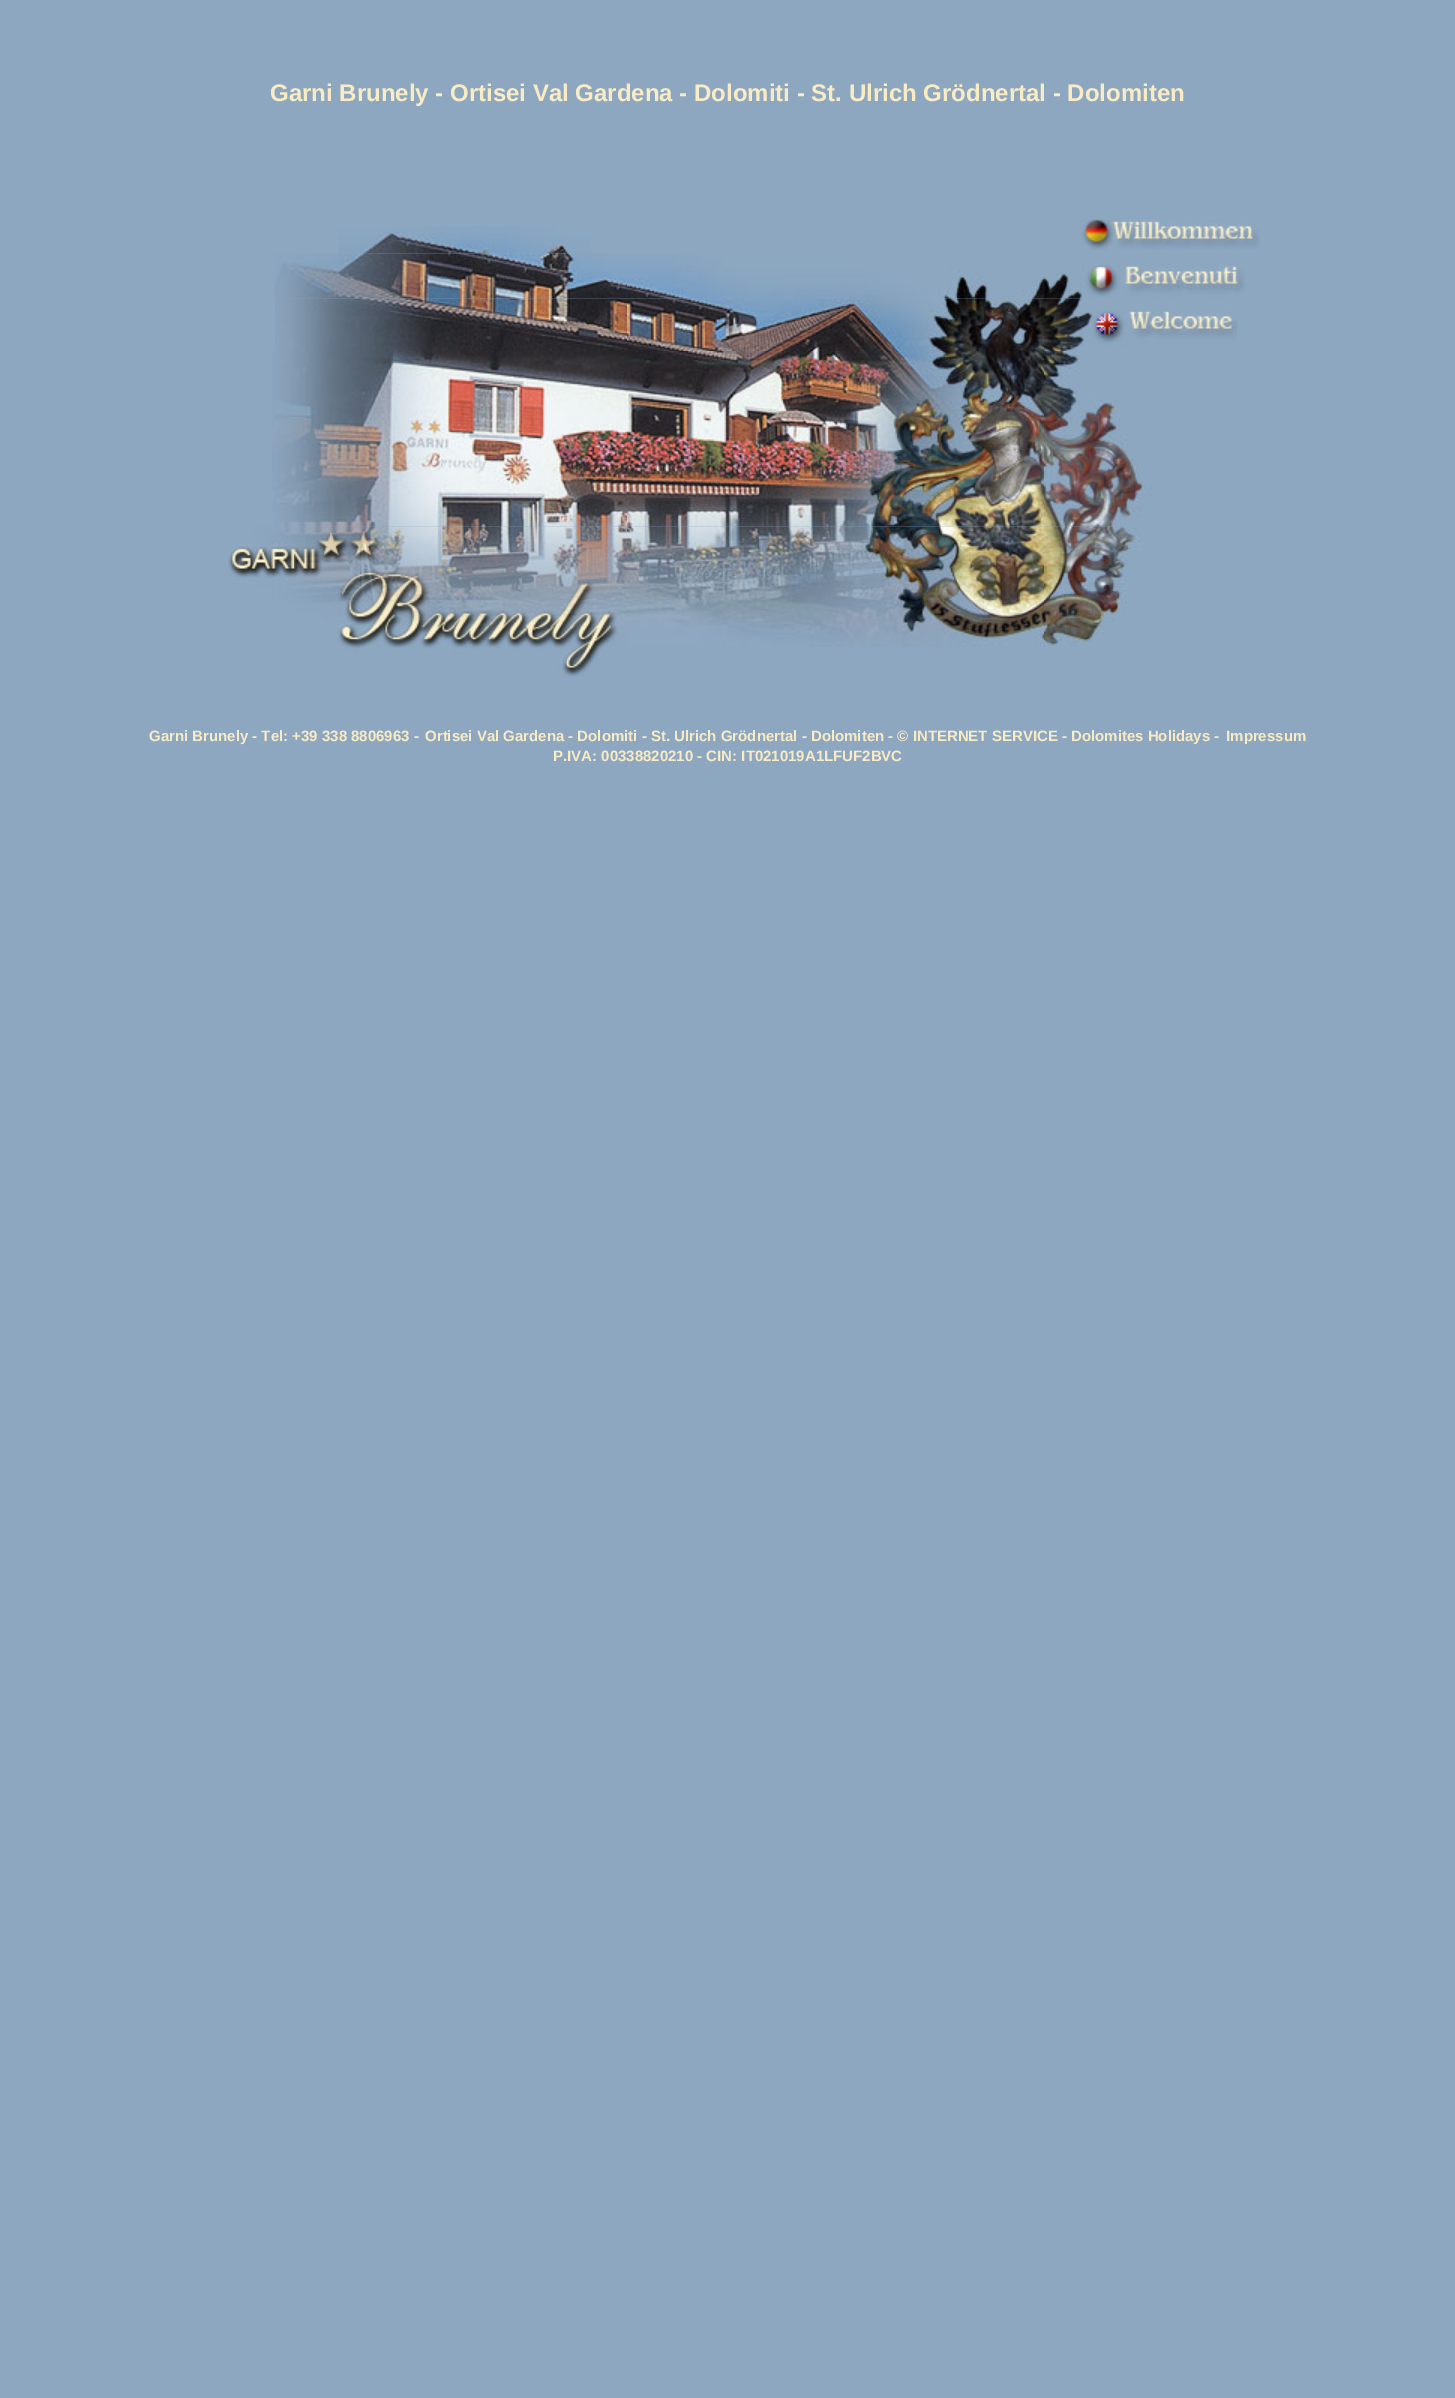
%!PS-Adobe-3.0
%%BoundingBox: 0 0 1455 2398
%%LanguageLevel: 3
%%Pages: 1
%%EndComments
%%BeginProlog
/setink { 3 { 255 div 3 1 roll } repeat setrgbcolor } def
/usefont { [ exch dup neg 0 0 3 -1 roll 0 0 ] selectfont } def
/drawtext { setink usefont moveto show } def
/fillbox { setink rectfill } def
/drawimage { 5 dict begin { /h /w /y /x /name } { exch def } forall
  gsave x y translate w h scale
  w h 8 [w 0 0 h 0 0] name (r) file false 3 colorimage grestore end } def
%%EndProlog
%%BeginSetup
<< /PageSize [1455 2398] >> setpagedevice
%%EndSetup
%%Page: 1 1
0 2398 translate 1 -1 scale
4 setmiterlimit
0 0 1455 2398 141 167 192 fillbox
(Garni Brunely -) 270 101 /LiberationSans-Bold 24 249 235 196 drawtext
(Ortisei Val Gardena - Dolomiti - St. Ulrich Grödnertal - Dolomiten) 450 101 /LiberationSans-Bold 24 249 235 196 drawtext
(assets/img1.rgb) 338 226 253 28 drawimage
(assets/img2.rgb) 1080 219 180 31 drawimage
(assets/img3.rgb) 274 253 353 46 drawimage
(assets/img4.rgb) 627 254 417 45 drawimage
(assets/img5.rgb) 1044 265 203 34 drawimage
(assets/img6.rgb) 275 298 352 53 drawimage
(assets/img7.rgb) 627 298 417 53 drawimage
(assets/img8.rgb) 1044 298 193 53 drawimage
(assets/img9.rgb) 272 351 355 176 drawimage
(assets/img10.rgb) 627 351 417 176 drawimage
(assets/img11.rgb) 1044 351 108 176 drawimage
(assets/img12.rgb) 228 526 399 151 drawimage
(assets/img13.rgb) 627 526 417 121 drawimage
(assets/img14.rgb) 1044 526 96 121 drawimage
(Garni Brunely - Tel: +39 338 8806963 -) 149 741 /LiberationSans-Bold 15 249 235 196 drawtext
(Ortisei Val Gardena - Dolomiti - St. Ulrich Grödnertal - Dolomiten - © INTERNET SERVICE - Dolomites Holidays -) 425 741 /LiberationSans-Bold 15 249 235 196 drawtext
(Impressum) 1226 741 /LiberationSans-Bold 15 249 235 196 drawtext
(P.IVA: 00338820210 - CIN: IT021019A1LFUF2BVC) 553 761 /LiberationSans-Bold 15 249 235 196 drawtext
showpage
%%EOF
